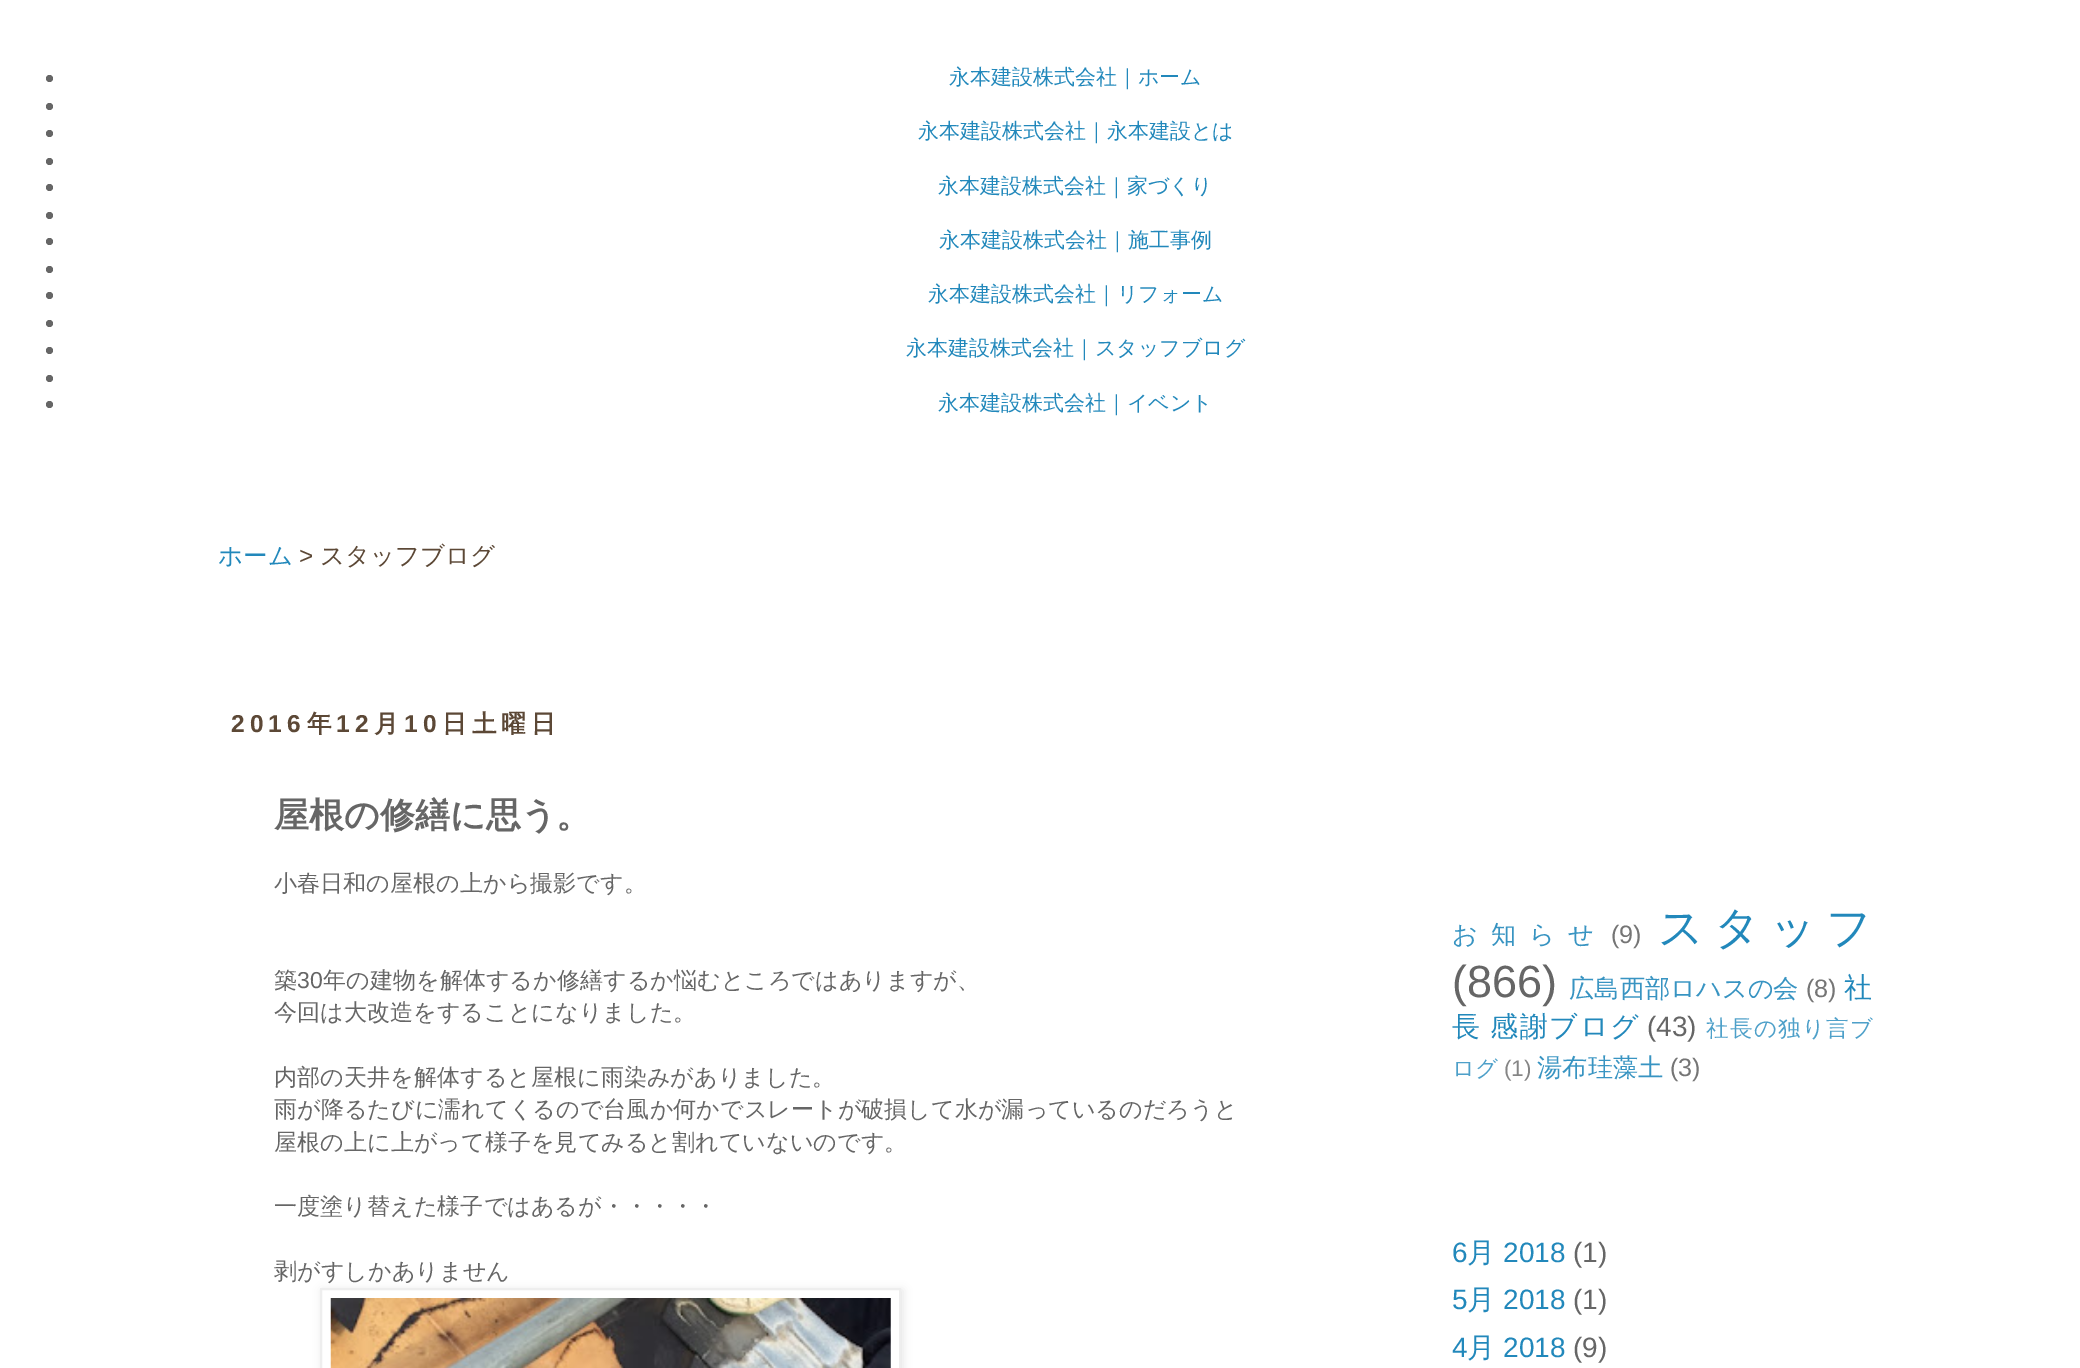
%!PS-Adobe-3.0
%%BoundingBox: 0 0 2080 1368
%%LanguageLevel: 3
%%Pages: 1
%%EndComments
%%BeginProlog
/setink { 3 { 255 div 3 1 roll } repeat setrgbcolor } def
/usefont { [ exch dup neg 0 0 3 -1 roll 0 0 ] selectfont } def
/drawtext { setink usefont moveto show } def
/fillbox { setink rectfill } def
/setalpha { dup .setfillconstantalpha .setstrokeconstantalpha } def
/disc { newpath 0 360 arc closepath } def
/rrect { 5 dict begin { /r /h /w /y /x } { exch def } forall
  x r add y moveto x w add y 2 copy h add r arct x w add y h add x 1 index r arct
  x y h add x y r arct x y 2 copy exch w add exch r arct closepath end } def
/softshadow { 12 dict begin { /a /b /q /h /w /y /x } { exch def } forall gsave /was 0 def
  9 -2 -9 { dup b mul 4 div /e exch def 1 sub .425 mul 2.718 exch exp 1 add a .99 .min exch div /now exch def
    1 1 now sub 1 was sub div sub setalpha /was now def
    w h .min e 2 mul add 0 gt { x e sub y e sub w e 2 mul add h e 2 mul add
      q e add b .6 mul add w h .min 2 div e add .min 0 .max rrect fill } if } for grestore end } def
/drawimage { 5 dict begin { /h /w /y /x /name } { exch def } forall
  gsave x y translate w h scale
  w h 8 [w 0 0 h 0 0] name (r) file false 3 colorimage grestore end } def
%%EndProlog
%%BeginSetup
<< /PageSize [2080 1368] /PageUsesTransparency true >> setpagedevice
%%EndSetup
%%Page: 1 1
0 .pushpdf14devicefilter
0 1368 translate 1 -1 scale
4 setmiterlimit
0 0 2080 1368 255 255 255 fillbox
102 102 102 setink
49.5 78.5 3.5 disc fill
(永本建設株式会社｜ホーム) 949 84 /WenQuanYiZenHei-Medium 21 34 136 187 drawtext
102 102 102 setink
49.5 106.5 3.5 disc fill
49.5 133.5 3.5 disc fill
(永本建設株式会社｜永本建設とは) 918 138 /WenQuanYiZenHei-Medium 21 34 136 187 drawtext
102 102 102 setink
49.5 161.5 3.5 disc fill
49.5 187.5 3.5 disc fill
(永本建設株式会社｜家づくり) 938 193 /WenQuanYiZenHei-Medium 21 34 136 187 drawtext
102 102 102 setink
49.5 215.5 3.5 disc fill
49.5 241.5 3.5 disc fill
(永本建設株式会社｜施工事例) 939 247 /WenQuanYiZenHei-Medium 21 34 136 187 drawtext
102 102 102 setink
49.5 269.5 3.5 disc fill
49.5 295.5 3.5 disc fill
(永本建設株式会社｜リフォーム) 928 301 /WenQuanYiZenHei-Medium 21 34 136 187 drawtext
102 102 102 setink
49.5 323.5 3.5 disc fill
49.5 350.5 3.5 disc fill
(永本建設株式会社｜スタッフブログ) 906 355 /WenQuanYiZenHei-Medium 21 34 136 187 drawtext
102 102 102 setink
49.5 378.5 3.5 disc fill
49.5 404.5 3.5 disc fill
(永本建設株式会社｜イベント) 938 410 /WenQuanYiZenHei-Medium 21 34 136 187 drawtext
(ホーム) 218 564 /WenQuanYiZenHei-Medium 24.5 34 136 187 drawtext
(>) 299 564 /LiberationSans-Regular 24.5 92 72 54 drawtext
(スタッフブログ) 320 564 /WenQuanYiZenHei-Medium 24.5 92 72 54 drawtext
/LiberationSans-Bold 24.5 usefont
231 732 moveto 5 0 (2016) ashow
/WenQuanYiZenHei-Bold 24.5 usefont
307 732 moveto 5 0 (年) ashow
/LiberationSans-Bold 24.5 usefont
336 732 moveto 5 0 (12) ashow
/WenQuanYiZenHei-Bold 24.5 usefont
374 732 moveto 5 0 (月) ashow
/LiberationSans-Bold 24.5 usefont
404 732 moveto 5 0 (10) ashow
/WenQuanYiZenHei-Bold 24.5 usefont
442 732 moveto 5 0 (日土曜日) ashow
(屋根の修繕に思う。) 274 827 /WenQuanYiZenHei-Bold 35 102 102 102 drawtext
(小春日和の屋根の上から撮影です。) 274 891 /WenQuanYiZenHei-Medium 23.1 102 102 102 drawtext
(築) 274 988 /WenQuanYiZenHei-Medium 23.1 102 102 102 drawtext
(30) 297 988 /LiberationSans-Regular 23.1 102 102 102 drawtext
(年の建物を解体するか修繕するか悩むところではありますが、) 323 988 /WenQuanYiZenHei-Medium 23.1 102 102 102 drawtext
(今回は大改造をすることになりました。) 274 1020 /WenQuanYiZenHei-Medium 23.1 102 102 102 drawtext
(内部の天井を解体すると屋根に雨染みがありました。) 274 1085 /WenQuanYiZenHei-Medium 23.1 102 102 102 drawtext
(雨が降るたびに濡れてくるので台風か何かでスレートが破損して水が漏っているのだろうと) 274 1117 /WenQuanYiZenHei-Medium 23.1 102 102 102 drawtext
(屋根の上に上がって様子を見てみると割れていないのです。) 274 1150 /WenQuanYiZenHei-Medium 23.1 102 102 102 drawtext
(一度塗り替えた様子ではあるが・・・・・) 274 1214 /WenQuanYiZenHei-Medium 23.1 102 102 102 drawtext
(剥がすしかありません) 274 1279 /WenQuanYiZenHei-Medium 23.1 102 102 102 drawtext
0 0 0 setink
322 1290 581 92 0 4.5 0.1 softshadow
255 255 255 setink
321 1289 moveto 900 1289 lineto 900 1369 lineto 321 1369 lineto closepath gsave fill grestore
238 238 238 setink
2 setlinewidth
stroke
(assets/img1.rgb) 330 1298 561 70 drawimage
/WenQuanYiZenHei-Medium 25.25 usefont
56 148 194 setink
1452 943 moveto 13 0 (お知らせ) ashow
(\(9\)) 1611 943 /LiberationSans-Regular 25.25 117 117 117 drawtext
/WenQuanYiZenHei-Medium 45 usefont
34 136 187 setink
1658 943 moveto 10 0 (スタッフ) ashow
(\(866\)) 1452 997 /LiberationSans-Regular 45 102 102 102 drawtext
(広島西部ロハスの会) 1569 997 /WenQuanYiZenHei-Medium 25.25 56 148 194 drawtext
(\(8\)) 1806 997 /LiberationSans-Regular 25.25 117 117 117 drawtext
(社) 1844 997 /WenQuanYiZenHei-Medium 28 34 136 187 drawtext
1452 1036 moveto -1 0 32 1.5 0 (長 感謝ブログ) awidthshow
(\(43\)) 1647 1036 /LiberationSans-Regular 28 102 102 102 drawtext
/WenQuanYiZenHei-Medium 22.5 usefont
78 160 201 setink
1706 1036 moveto 1.25 0 (社長の独り言ブ) ashow
(ログ) 1452 1076 /WenQuanYiZenHei-Medium 22.5 78 160 201 drawtext
(\(1\)) 1504 1076 /LiberationSans-Regular 22.5 133 133 133 drawtext
(湯布珪藻土) 1537 1076 /WenQuanYiZenHei-Medium 25.25 56 148 194 drawtext
(\(3\)) 1670 1076 /LiberationSans-Regular 25.25 117 117 117 drawtext
(6) 1452 1262 /LiberationSans-Regular 28 34 136 187 drawtext
(月) 1467 1262 /WenQuanYiZenHei-Medium 28 34 136 187 drawtext
(2018) 1503 1262 /LiberationSans-Regular 28 34 136 187 drawtext
(\(1\)) 1573 1262 /LiberationSans-Regular 28 102 102 102 drawtext
(5) 1452 1309 /LiberationSans-Regular 28 34 136 187 drawtext
(月) 1467 1309 /WenQuanYiZenHei-Medium 28 34 136 187 drawtext
(2018) 1503 1309 /LiberationSans-Regular 28 34 136 187 drawtext
(\(1\)) 1573 1309 /LiberationSans-Regular 28 102 102 102 drawtext
(4) 1452 1357 /LiberationSans-Regular 28 34 136 187 drawtext
(月) 1467 1357 /WenQuanYiZenHei-Medium 28 34 136 187 drawtext
(2018) 1503 1357 /LiberationSans-Regular 28 34 136 187 drawtext
(\(9\)) 1573 1357 /LiberationSans-Regular 28 102 102 102 drawtext
.poppdf14devicefilter showpage
%%EOF
